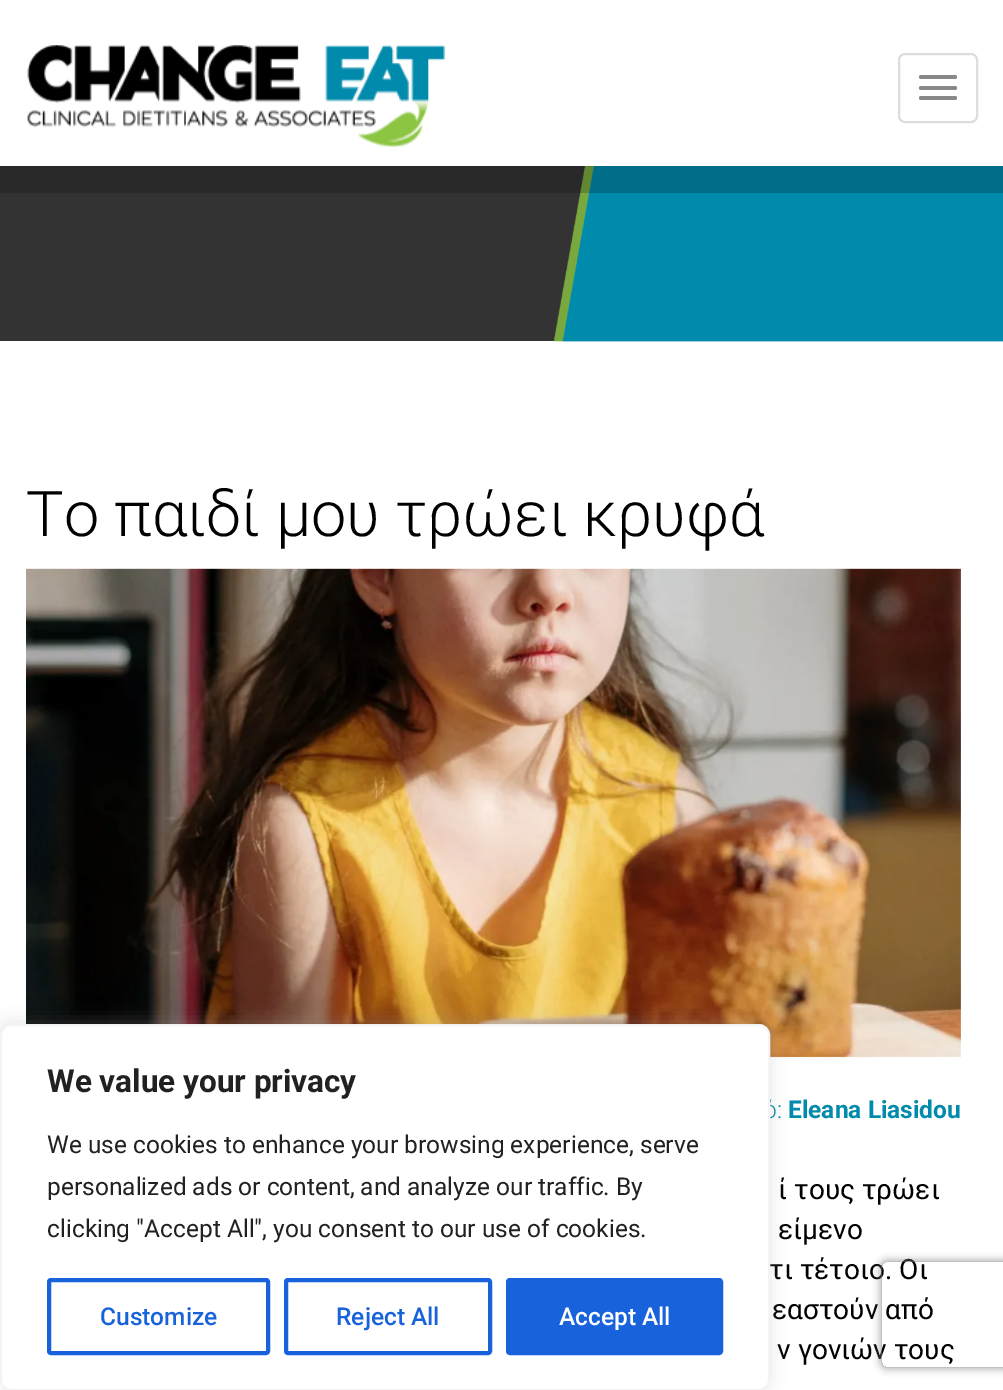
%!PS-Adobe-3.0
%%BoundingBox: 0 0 1003 1390
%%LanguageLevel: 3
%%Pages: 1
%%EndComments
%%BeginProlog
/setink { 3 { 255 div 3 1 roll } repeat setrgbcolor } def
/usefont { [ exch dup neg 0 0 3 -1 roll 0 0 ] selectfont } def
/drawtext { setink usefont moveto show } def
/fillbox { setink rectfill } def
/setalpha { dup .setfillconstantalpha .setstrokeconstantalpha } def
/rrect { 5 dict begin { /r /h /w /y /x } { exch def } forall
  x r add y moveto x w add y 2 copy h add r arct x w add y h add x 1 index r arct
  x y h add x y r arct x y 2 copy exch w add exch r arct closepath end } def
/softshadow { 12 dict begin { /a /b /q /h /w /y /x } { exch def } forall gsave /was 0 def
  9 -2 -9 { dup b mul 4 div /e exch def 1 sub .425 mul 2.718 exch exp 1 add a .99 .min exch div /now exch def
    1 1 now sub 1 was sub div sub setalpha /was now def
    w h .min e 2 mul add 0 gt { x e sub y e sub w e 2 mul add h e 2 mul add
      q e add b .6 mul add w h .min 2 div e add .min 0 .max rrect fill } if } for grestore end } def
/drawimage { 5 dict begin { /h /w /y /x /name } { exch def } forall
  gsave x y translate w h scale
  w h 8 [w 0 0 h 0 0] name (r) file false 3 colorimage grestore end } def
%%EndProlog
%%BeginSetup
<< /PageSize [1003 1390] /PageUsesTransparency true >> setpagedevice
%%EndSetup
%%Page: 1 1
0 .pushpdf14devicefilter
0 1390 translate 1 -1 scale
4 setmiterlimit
0 0 1003 1390 255 255 255 fillbox
(assets/img1.rgb) 27 45 419 102 drawimage
221 221 221 setink
2 setlinewidth
899 54 78 68 6 rrect stroke
136 136 136 setink
919 75 38 4 2 rrect fill
919 86 38 4 2 rrect fill
919 96 38 4 2 rrect fill
0 166 594 175 51 51 51 fillbox
(assets/img2.rgb) 553 166 450 176 drawimage
0.2 setalpha
0 166 1003 27 0 0 0 fillbox
1 setalpha
(Το παιδί μου τρώει κρυφά) 26 536 /Roboto-Light 63 0 0 0 drawtext
(assets/img3.rgb) 26 568 935 490 drawimage
(ό:) 763 1118 /Roboto-Light 24.5 0 138 171 drawtext
(Eleana Liasidou) 788 1118 /Roboto-Bold 24.5 0 138 171 drawtext
(ί τους τρώει) 778 1199 /Roboto-Regular 28 0 0 0 drawtext
(είμενο) 778 1239 /Roboto-Regular 28 0 0 0 drawtext
(τι τέτοιο. Οι) 769 1279 /Roboto-Regular 28 0 0 0 drawtext
(εαστούν από) 772 1319 /Roboto-Regular 28 0 0 0 drawtext
(ν γονιών τους) 777 1359 /Roboto-Regular 28 0 0 0 drawtext
172 171 171 setink
0 1022 770 368 11 9 0.3 softshadow
255 255 255 setink
1 1025 768 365 10 rrect gsave fill grestore
244 244 244 setink
stroke
(We value your privacy) 47 1092 /Roboto-Bold 31.5 33 33 33 drawtext
(We use cookies to enhance your browsing experience, serve) 47 1153 /Roboto-Regular 24.5 33 33 33 drawtext
(personalized ads or content, and analyze our traffic. By) 47 1195 /Roboto-Regular 24.5 33 33 33 drawtext
(clicking "Accept All", you consent to our use of cookies.) 47 1237 /Roboto-Regular 24.5 33 33 33 drawtext
24 99 220 setink
4 setlinewidth
49 1280 219 73 2 rrect stroke
(Customize) 100 1325 /Roboto-Medium 24.5 24 99 220 drawtext
286 1280 204 73 2 rrect stroke
(Reject All) 336 1325 /Roboto-Medium 24.5 24 99 220 drawtext
508 1280 213 73 2 rrect gsave fill grestore
stroke
(Accept All) 559 1325 /Roboto-Medium 24.5 255 255 255 drawtext
gsave
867 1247 moveto 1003 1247 lineto 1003 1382 lineto 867 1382 lineto closepath 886 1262 moveto 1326 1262 lineto 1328 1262 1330 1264 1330 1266 curveto 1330 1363 lineto 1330 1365 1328 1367 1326 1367 curveto 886 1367 lineto 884 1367 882 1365 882 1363 curveto 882 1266 lineto 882 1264 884 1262 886 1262 curveto closepath eoclip newpath
128 128 128 setink
882 1262 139 105 4 4.5 1 softshadow
grestore
.poppdf14devicefilter showpage
%%EOF
